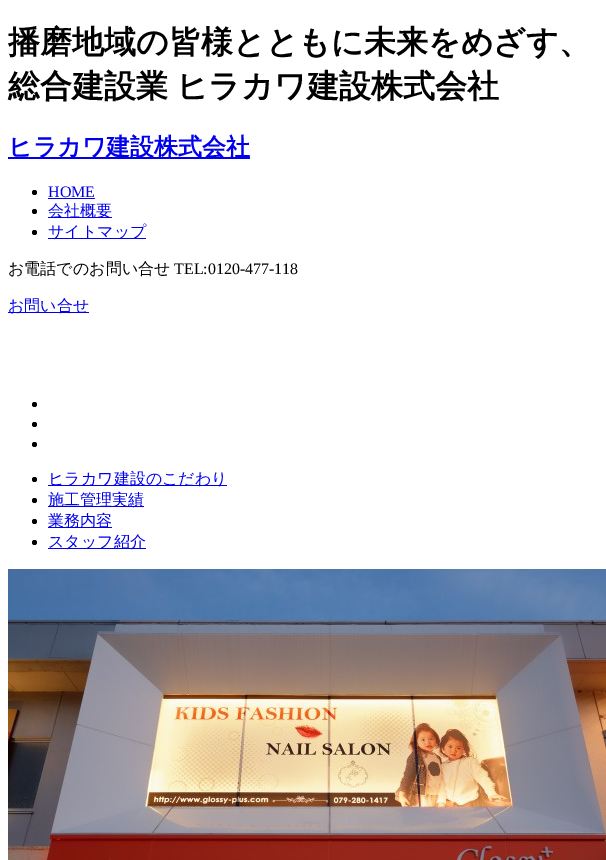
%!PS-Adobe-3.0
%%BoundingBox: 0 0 606 860
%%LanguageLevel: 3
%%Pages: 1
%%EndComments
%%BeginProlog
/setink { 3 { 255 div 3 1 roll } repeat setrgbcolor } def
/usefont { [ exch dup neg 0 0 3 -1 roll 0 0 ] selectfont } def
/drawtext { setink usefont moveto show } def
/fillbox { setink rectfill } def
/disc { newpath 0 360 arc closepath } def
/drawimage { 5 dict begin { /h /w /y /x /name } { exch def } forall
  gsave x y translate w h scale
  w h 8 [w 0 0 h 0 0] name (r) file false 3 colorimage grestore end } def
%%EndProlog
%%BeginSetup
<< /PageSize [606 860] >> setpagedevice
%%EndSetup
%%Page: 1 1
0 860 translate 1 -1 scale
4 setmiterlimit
0 0 606 860 255 255 255 fillbox
(播磨地域の皆様とともに未来をめざす、) 8 53 /WenQuanYiZenHei-Bold 32 0 0 0 drawtext
8 97 moveto -2 0 32 (総合建設業 ヒラカワ建設株式会社) widthshow
8 157 242 2 0 0 238 fillbox
(ヒラカワ建設株式会社) 8 155 /WenQuanYiZenHei-Bold 24 0 0 238 drawtext
0 0 0 setink
34.5 192.5 2.5 disc fill
(HOME) 48 197 /LiberationSerif-Regular 16 0 0 238 drawtext
48 198 47 1 0 0 238 fillbox
0 0 0 setink
34.5 211.5 2.5 disc fill
48 217 64 1 0 0 238 fillbox
(会社概要) 48 216 /WenQuanYiZenHei-Medium 16 0 0 238 drawtext
0 0 0 setink
34.5 232.5 2.5 disc fill
48 238 98 1 0 0 238 fillbox
(サイトマップ) 48 237 /WenQuanYiZenHei-Medium 16 0 0 238 drawtext
(お電話でのお問い合せ) 8 274 /WenQuanYiZenHei-Medium 16 0 0 0 drawtext
(TEL:0120-477-118) 174 274 /LiberationSerif-Regular 16 0 0 0 drawtext
8 312 81 1 0 0 238 fillbox
(お問い合せ) 8 311 /WenQuanYiZenHei-Medium 16 0 0 238 drawtext
0 0 0 setink
34.5 404.5 2.5 disc fill
34.5 424.5 2.5 disc fill
34.5 444.5 2.5 disc fill
34.5 479.5 2.5 disc fill
48 485 179 1 0 0 238 fillbox
(ヒラカワ建設のこだわり) 48 484 /WenQuanYiZenHei-Medium 16 0 0 238 drawtext
0 0 0 setink
34.5 500.5 2.5 disc fill
48 506 96 1 0 0 238 fillbox
(施工管理実績) 48 505 /WenQuanYiZenHei-Medium 16 0 0 238 drawtext
0 0 0 setink
34.5 521.5 2.5 disc fill
48 527 64 1 0 0 238 fillbox
(業務内容) 48 526 /WenQuanYiZenHei-Medium 16 0 0 238 drawtext
0 0 0 setink
34.5 542.5 2.5 disc fill
48 548 98 1 0 0 238 fillbox
(スタッフ紹介) 48 547 /WenQuanYiZenHei-Medium 16 0 0 238 drawtext
(assets/img1.rgb) 8 569 598 291 drawimage
showpage
%%EOF
